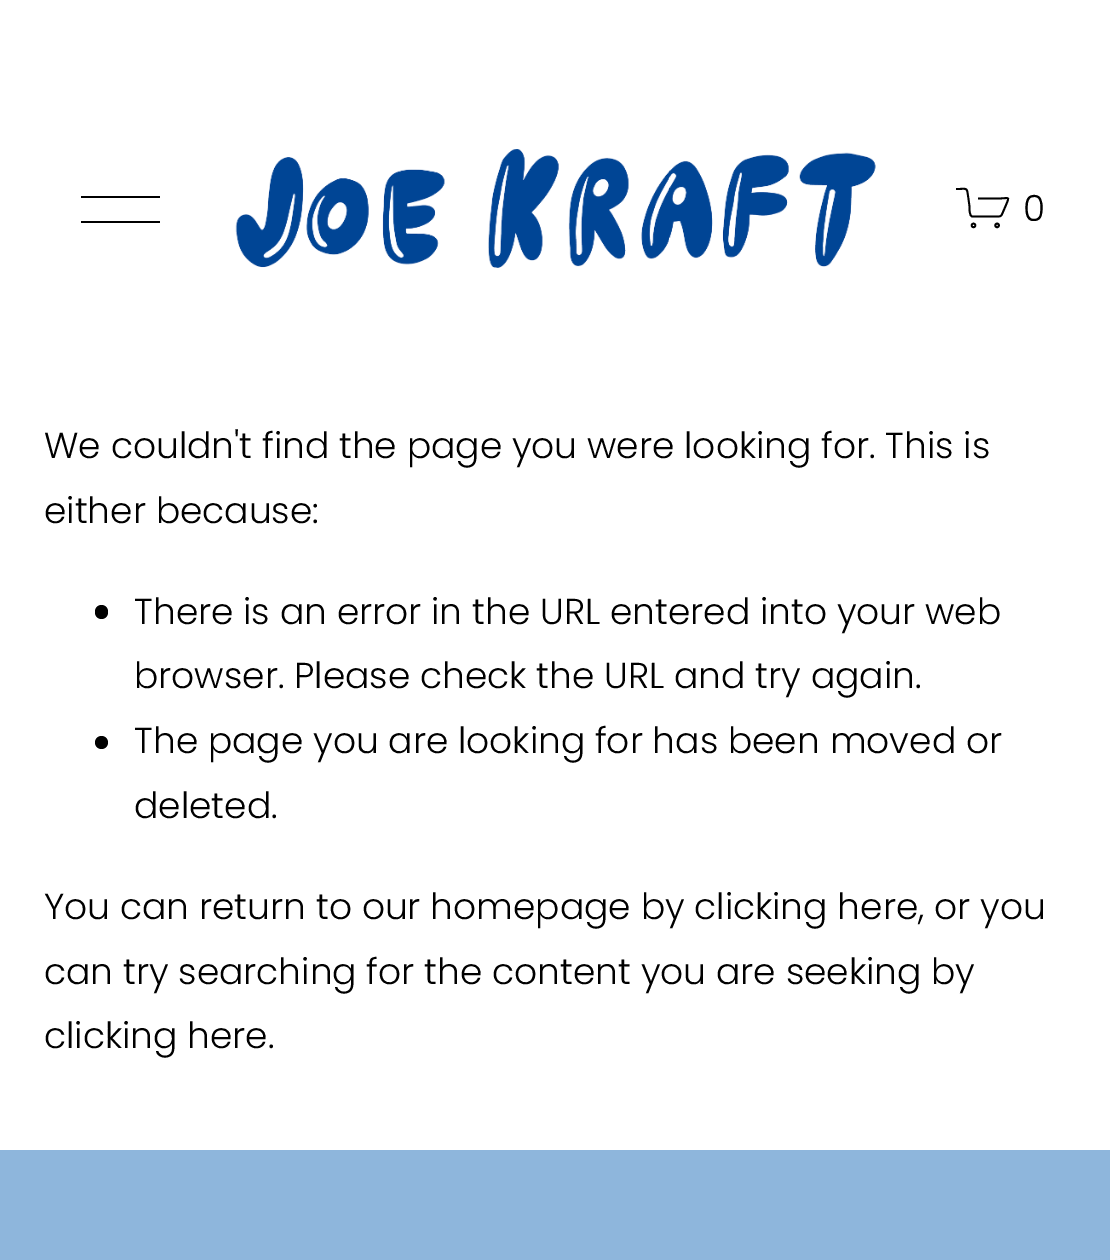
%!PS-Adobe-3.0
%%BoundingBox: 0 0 1110 1260
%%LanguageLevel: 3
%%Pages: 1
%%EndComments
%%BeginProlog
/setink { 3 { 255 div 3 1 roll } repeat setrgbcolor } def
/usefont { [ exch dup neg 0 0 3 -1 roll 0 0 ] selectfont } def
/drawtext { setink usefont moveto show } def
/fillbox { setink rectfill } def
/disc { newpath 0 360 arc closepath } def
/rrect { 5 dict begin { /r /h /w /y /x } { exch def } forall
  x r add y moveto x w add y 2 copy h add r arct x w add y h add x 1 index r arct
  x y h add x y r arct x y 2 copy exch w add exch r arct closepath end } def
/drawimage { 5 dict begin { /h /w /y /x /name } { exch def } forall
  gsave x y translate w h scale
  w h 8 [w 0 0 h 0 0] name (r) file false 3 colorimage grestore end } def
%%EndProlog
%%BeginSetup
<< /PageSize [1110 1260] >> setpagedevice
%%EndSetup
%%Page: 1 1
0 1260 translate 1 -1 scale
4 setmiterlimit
0 0 1110 1260 255 255 255 fillbox
81 196 79 2 0 0 0 fillbox
81 221 79 2 0 0 0 fillbox
(assets/img1.rgb) 235 149 641 119 drawimage
1.8 setlinewidth
997.1 225.4 1.8 disc stroke
973.5 225.4 1.8 disc stroke
956 189 moveto 968.5 189 966.5 186.5 968.5 199 curveto 969.5 206.5 lineto 969.5 208 969 216.5 972.5 216.5 curveto 995 216.5 lineto 1001 216.5 1001 217 1003 212 curveto 1006 205 lineto 1010 195.5 1009 198.5 997.5 198.5 curveto 978 198.5 lineto stroke
(0) 1023 221 /Poppins-Light 36 0 0 0 drawtext
(We couldn't find the page you were looking for. This is) 44 458 /Poppins-Light 36 0 0 0 drawtext
(either because:) 44 523 /Poppins-Light 36 0 0 0 drawtext
95 605 13 14 6.5 rrect fill
(There is an error in the URL entered into your web) 134 624 /Poppins-Light 36 0 0 0 drawtext
(browser. Please check the URL and try again.) 134 688 /Poppins-Light 36 0 0 0 drawtext
101.5 742.5 6.5 disc fill
(The page you are looking for has been moved or) 134 753 /Poppins-Light 36 0 0 0 drawtext
(deleted.) 134 818 /Poppins-Light 36 0 0 0 drawtext
(You can return to our homepage by clicking here, or you) 44 919 /Poppins-Light 36 0 0 0 drawtext
(can try searching for the content you are seeking by) 44 984 /Poppins-Light 36 0 0 0 drawtext
(clicking here.) 44 1048 /Poppins-Light 36 0 0 0 drawtext
0 1150 1110 110 142 182 220 fillbox
showpage
%%EOF
